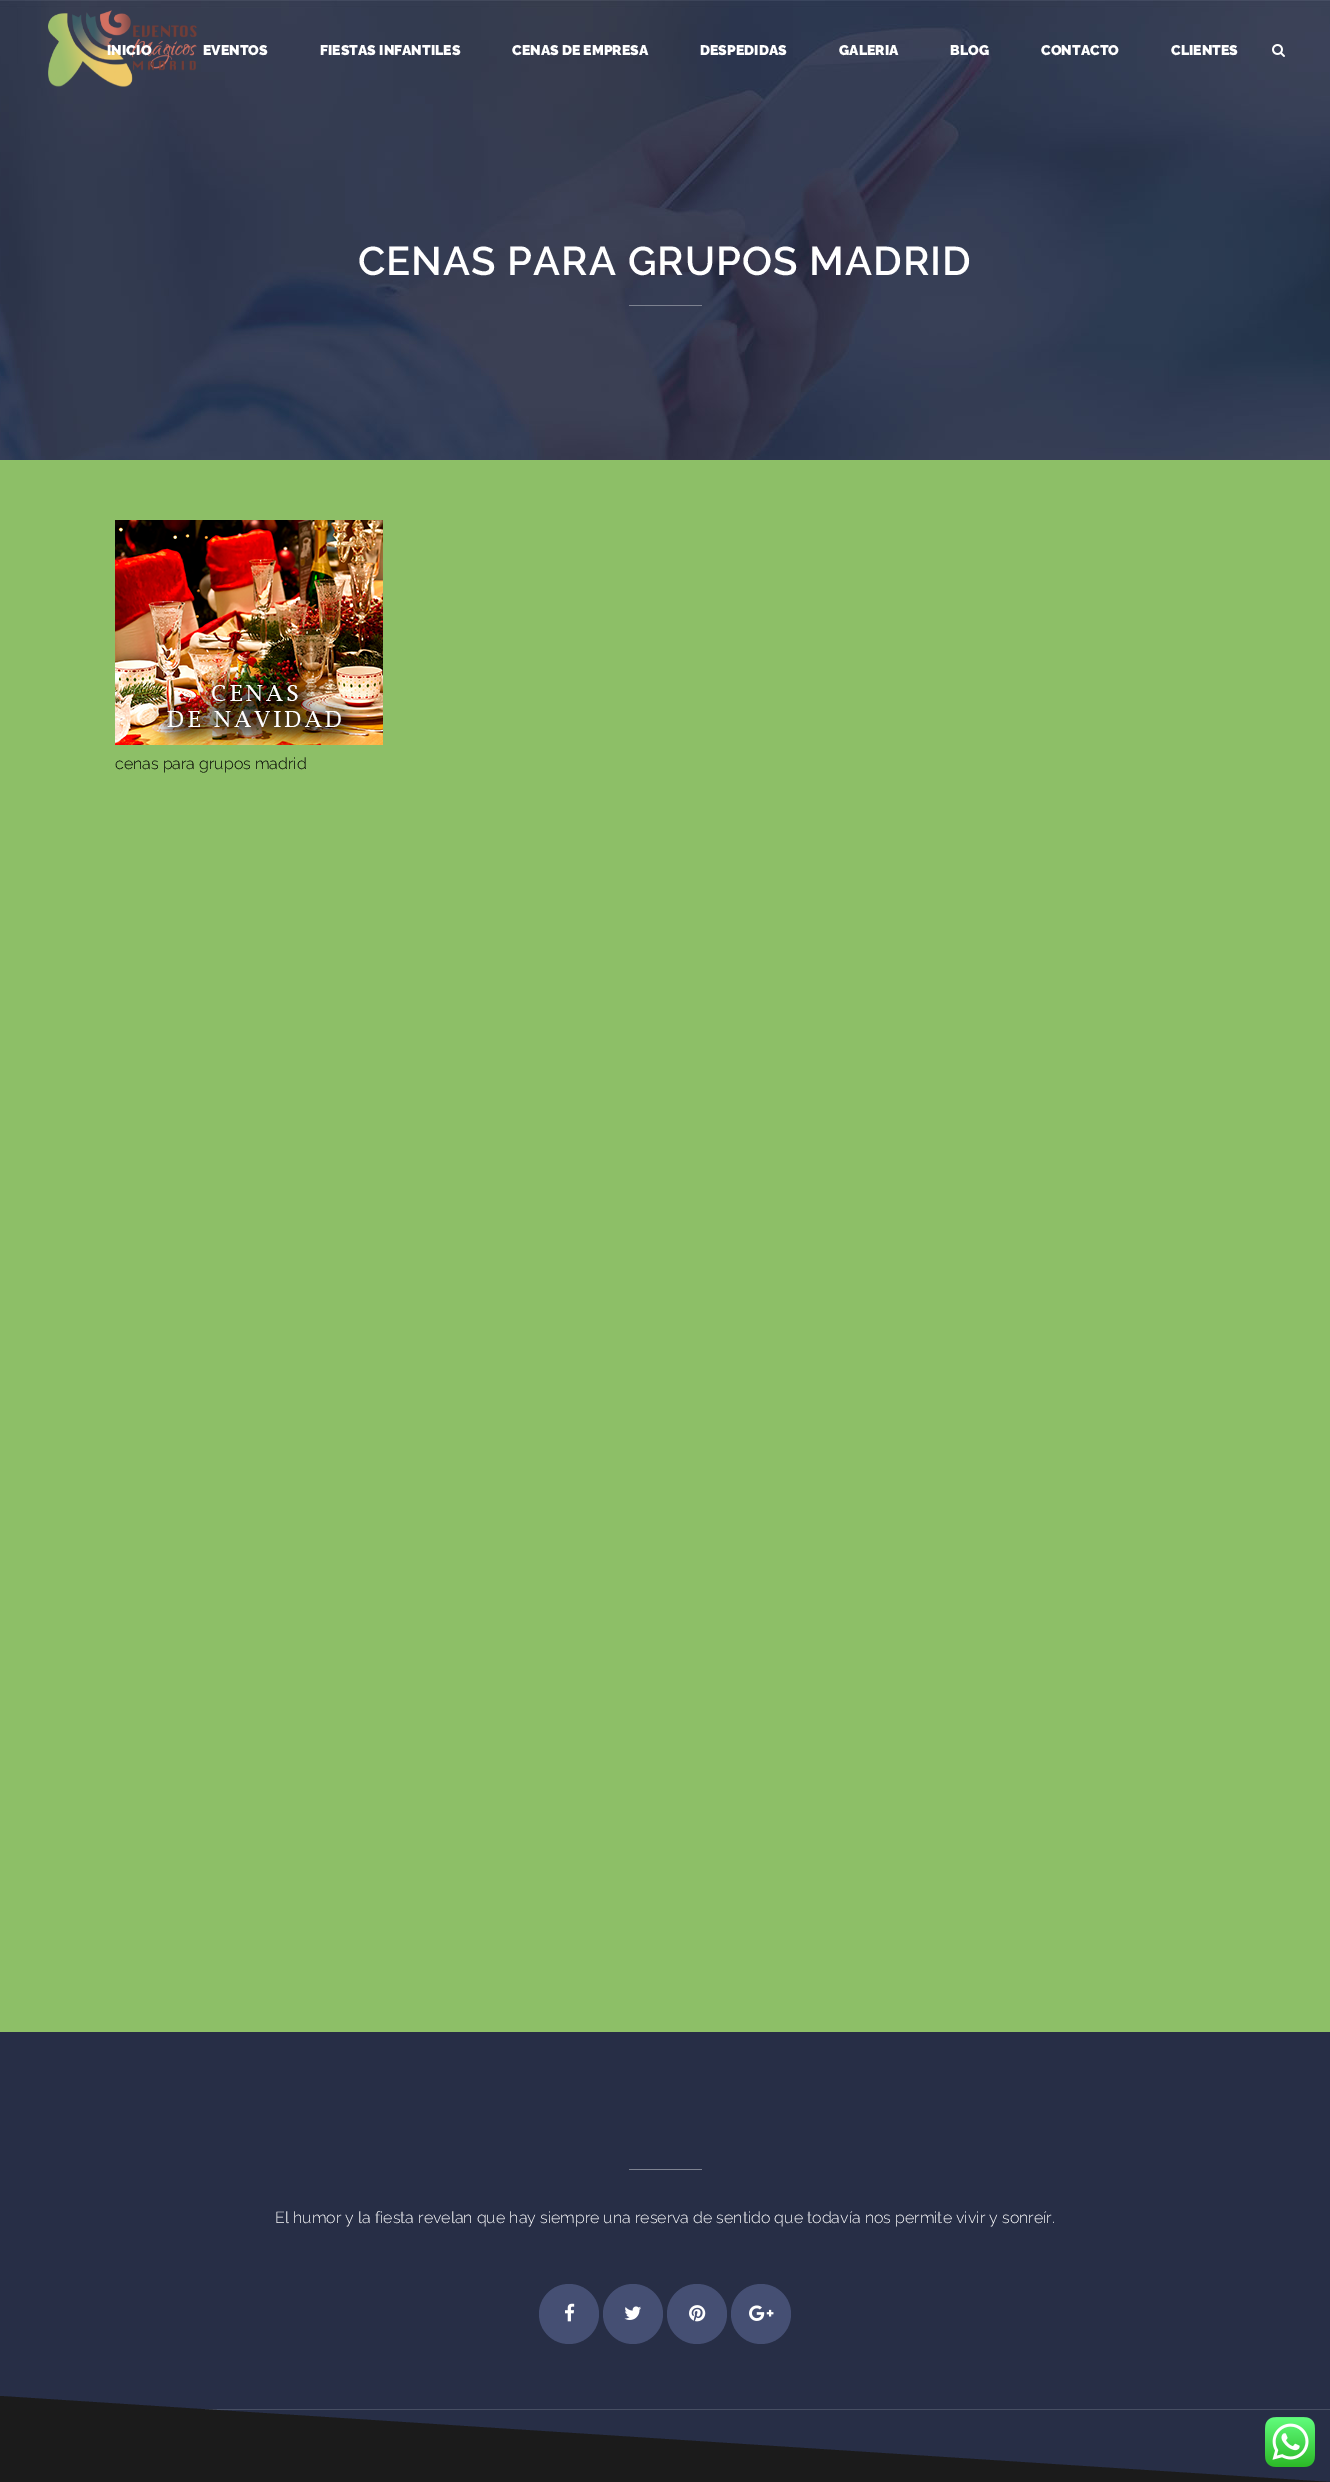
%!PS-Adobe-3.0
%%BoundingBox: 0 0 1330 2482
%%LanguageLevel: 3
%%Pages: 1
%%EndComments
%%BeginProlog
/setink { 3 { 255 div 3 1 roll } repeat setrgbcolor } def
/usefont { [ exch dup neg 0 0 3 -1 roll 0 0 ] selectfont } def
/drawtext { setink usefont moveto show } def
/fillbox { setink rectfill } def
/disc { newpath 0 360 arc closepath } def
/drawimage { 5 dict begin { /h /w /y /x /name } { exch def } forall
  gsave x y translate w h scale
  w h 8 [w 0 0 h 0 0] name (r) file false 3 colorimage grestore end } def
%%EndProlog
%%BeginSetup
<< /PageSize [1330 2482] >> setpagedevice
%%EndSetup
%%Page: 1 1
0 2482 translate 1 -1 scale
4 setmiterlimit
0 0 1330 2482 141 191 103 fillbox
(assets/img3.rgb) 0 0 1330 460 drawimage
(assets/img1.rgb) 48 10 149 77 drawimage
(assets/img2.rgb) 1272 44 13 13 drawimage
(INICIO) 107 55 /Raleway-Black 14 255 255 255 drawtext
(EVENTOS) 203 55 /Raleway-Black 14 255 255 255 drawtext
(FIESTAS INFANTILES) 320 55 /Raleway-Black 14 255 255 255 drawtext
(CENAS DE EMPRESA) 512 55 /Raleway-Black 14 255 255 255 drawtext
(DESPEDIDAS) 700 55 /Raleway-Black 14 255 255 255 drawtext
(GALERIA) 839 55 /Raleway-Black 14 255 255 255 drawtext
(BLOG) 950 55 /Raleway-Black 14 255 255 255 drawtext
(CONTACTO) 1041 55 /Raleway-Black 14 255 255 255 drawtext
(CLIENTES) 1171 55 /Raleway-Black 14 255 255 255 drawtext
/Raleway-SemiBold 40 usefont
358 275 moveto 1 0 (CENAS PARA GRUPOS MADRID) ashow
629 305 73 1 125 130 144 fillbox
(assets/img4.rgb) 115 520 268 225 drawimage
(cenas para grupos madrid) 115 769 /Raleway-Light 16 0 0 0 drawtext
0 2032 1330 450 39 46 70 fillbox
629 2169 73 1 125 130 144 fillbox
(El humor y la fiesta revelan que hay siempre una reserva de sentido que todavía nos permite vivir y sonreír.) 275 2223 /Raleway-Light 16 255 255 255 drawtext
69 79 115 setink
569 2314 30 disc fill
(assets/img5.rgb) 565 2303 10 19 drawimage
633 2314 30 disc fill
(assets/img6.rgb) 624 2306 17 14 drawimage
697 2314 30 disc fill
(assets/img7.rgb) 689 2305 17 17 drawimage
761 2314 30 disc fill
(assets/img8.rgb) 749 2305 25 16 drawimage
202 2409 1128 1 72 79 99 fillbox
27 27 27 setink
0 2396 moveto 0 2482 lineto 1330 2482 lineto closepath fill
(assets/img9.rgb) 1265 2417 50 50 drawimage
showpage
%%EOF
